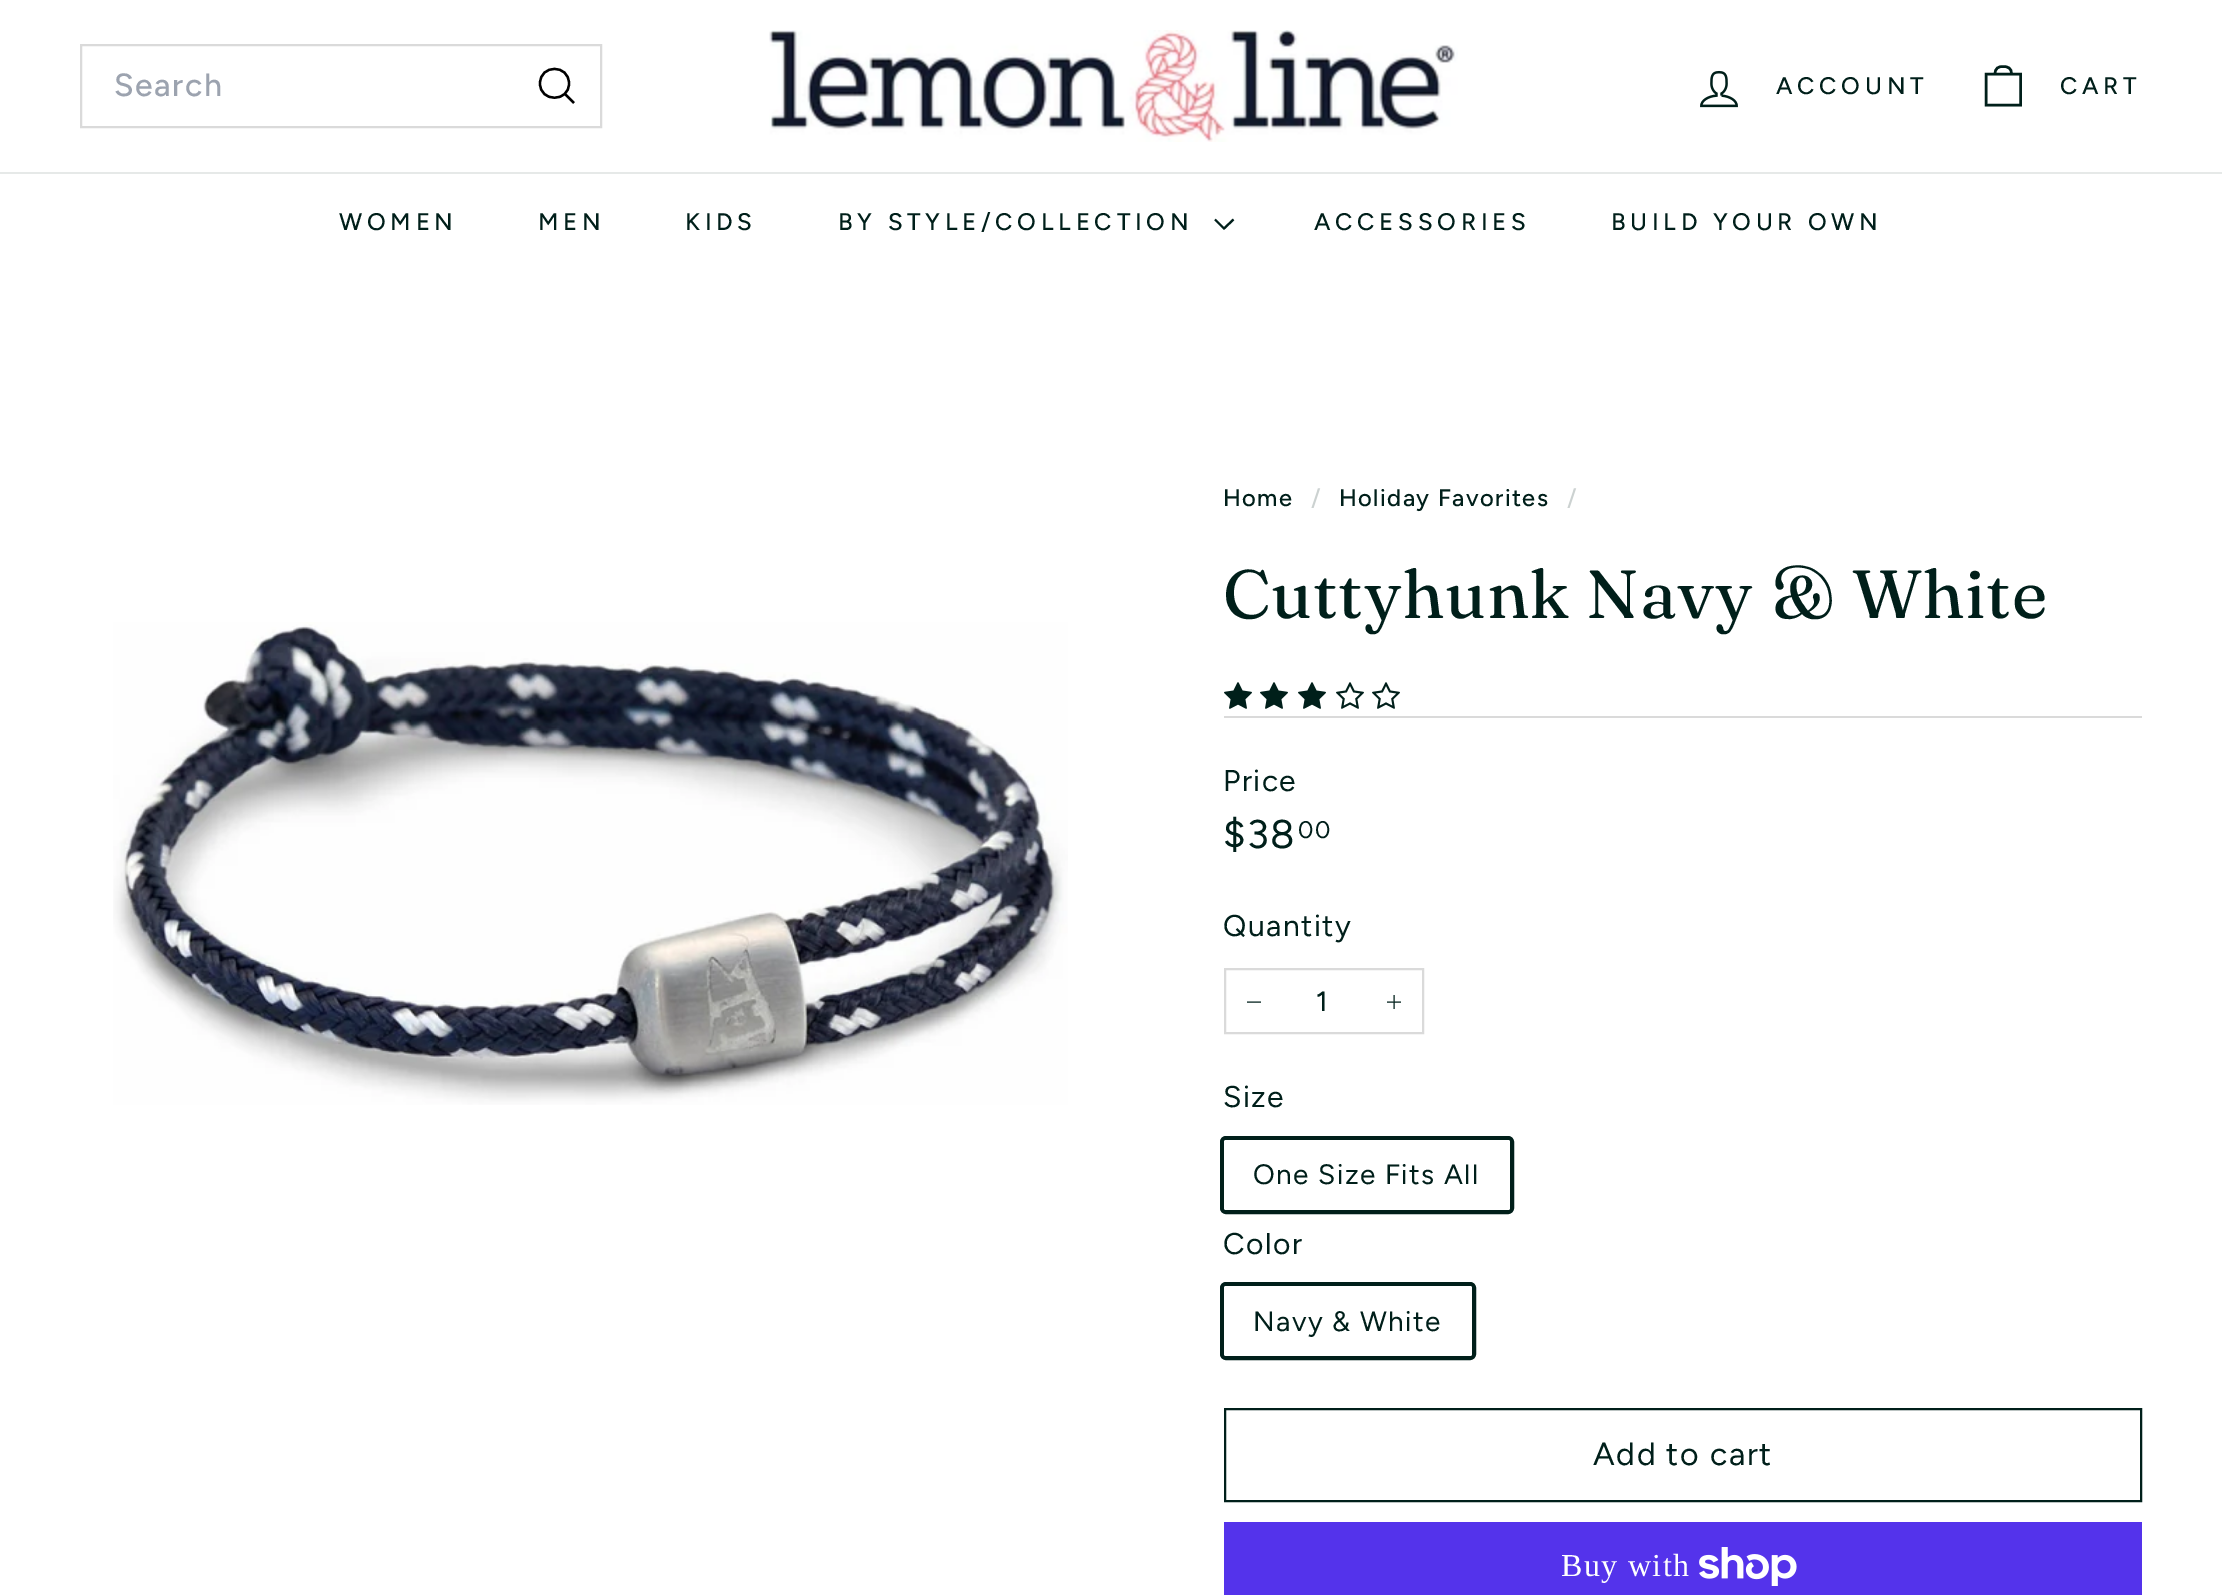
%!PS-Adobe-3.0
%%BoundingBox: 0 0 2222 1595
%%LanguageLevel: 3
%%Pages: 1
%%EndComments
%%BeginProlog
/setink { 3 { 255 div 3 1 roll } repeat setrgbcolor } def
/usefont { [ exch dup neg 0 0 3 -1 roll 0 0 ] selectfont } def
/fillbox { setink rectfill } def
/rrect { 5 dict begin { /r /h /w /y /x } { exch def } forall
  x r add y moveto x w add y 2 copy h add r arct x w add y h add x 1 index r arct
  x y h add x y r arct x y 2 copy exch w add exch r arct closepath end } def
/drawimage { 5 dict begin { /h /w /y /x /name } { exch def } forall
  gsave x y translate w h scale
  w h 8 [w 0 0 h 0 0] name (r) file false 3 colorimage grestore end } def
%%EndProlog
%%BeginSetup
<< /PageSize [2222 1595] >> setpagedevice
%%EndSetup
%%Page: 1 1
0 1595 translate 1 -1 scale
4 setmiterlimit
0 0 2222 1595 255 255 255 fillbox
218 218 218 setink
2 setlinewidth
81 45 520 82 rectstroke
/Figtree-Medium 32 usefont
156 163 175 setink
114 96 moveto 1.6 0 (Search) ashow
0 0 0 setink
2.3 setlinewidth
569 83.5 moveto 569 102.5 540 102.5 540 83.5 curveto 540 64 569 64 569 83.5 curveto 574 103 moveto 565 94 lineto stroke
(assets/img1.rgb) 769 30 689 112 drawimage
(assets/img2.rgb) 1700 70 38 38 drawimage
/Figtree-Medium 24 usefont
0 31 26 setink
1776 94 moveto 4.75 0 (ACCOUNT) ashow
2.5 setlinewidth
1995 74 moveto 1995 68 1998.5 66.5 2003 66.5 curveto 2008 66.5 2011.5 68 2011.5 74 curveto 1986 74 moveto 2020.5 74 lineto 2020.5 105 lineto 1986 105 lineto closepath stroke
2060 94 moveto 4.75 0 (CART) ashow
0 172 2222 2 230 233 232 fillbox
0 31 26 setink
339 230 moveto 4.75 0 (WOMEN) ashow
538 230 moveto 4.75 0 (MEN) ashow
685 230 moveto 4.75 0 (KIDS) ashow
838 230 moveto 4.75 0 (BY STYLE/COLLECTION) ashow
2.1 setlinewidth
1215 219.5 moveto 1224 228.5 lineto 1233.5 219.5 lineto stroke
1314 230 moveto 4.75 0 (ACCESSORIES) ashow
1611 230 moveto 4.75 0 (BUILD YOUR OWN) ashow
(assets/img3.rgb) 113 622 955 483 drawimage
/Figtree-Medium 23.75 usefont
1223 506 moveto 1.4 0 (Home) ashow
204 210 209 setink
1311 506 moveto 1.4 0 (/) ashow
0 31 26 setink
1339 506 moveto 1.4 0 (Holiday Favorites) ashow
204 210 209 setink
1567 506 moveto 1.4 0 (/) ashow
/Fraunces-Regular 68 usefont
0 31 26 setink
1223 618 moveto 0.7 0 (Cuttyhunk Navy & White) ashow
(assets/img4.rgb) 1224 682 28 27 drawimage
(assets/img4.rgb) 1260 682 28 27 drawimage
(assets/img4.rgb) 1298 682 28 27 drawimage
(assets/img5.rgb) 1336 682 28 27 drawimage
(assets/img5.rgb) 1372 682 28 27 drawimage
1224 716 918 2 218 218 218 fillbox
/Figtree-Regular 30 usefont
0 31 26 setink
1223 791 moveto 1.4 0 (Price) ashow
/Figtree-Regular 40 usefont
1223 848 moveto 1.4 0 ($38) ashow
/Figtree-Regular 24 usefont
1298 838 moveto 1.4 0 (00) ashow
/Figtree-Regular 30 usefont
1223 936 moveto 1.4 0 (Quantity) ashow
218 218 218 setink
2 setlinewidth
1225 969 198 64 rectstroke
0 31 26 setink
0.9 setlinewidth
1261 1002 moveto 1247 1002 lineto stroke
/Figtree-Medium 28 usefont
1316 1011 moveto 1.4 0 (1) ashow
1394 995 moveto 1394 1009 lineto 1401 1002 moveto 1387 1002 lineto stroke
/Figtree-Regular 30 usefont
1223 1107 moveto 1.4 0 (Size) ashow
4 setlinewidth
1222 1138 290 74 4 rrect stroke
255 255 255 setink
1224 1140 286 70 2 rrect fill
/Figtree-Regular 28 usefont
0 31 26 setink
1253 1184 moveto 1.4 0 (One Size Fits All) ashow
/Figtree-Regular 30 usefont
1223 1254 moveto 1.4 0 (Color) ashow
1222 1284 252 74 4 rrect stroke
255 255 255 setink
1224 1286 248 70 2 rrect fill
/Figtree-Regular 28 usefont
0 31 26 setink
1253 1331 moveto 1.4 0 (Navy & White) ashow
2 setlinewidth
1225 1409 916 92 rectstroke
/Figtree-Regular 32 usefont
1593 1465 moveto 1.6 0 (Add to cart) ashow
1224 1522 918 73 84 51 235 fillbox
/LiberationSerif-Regular 32 usefont
255 255 255 setink
1561 1576 moveto 1.4 0 (Buy with) ashow
(assets/img6.rgb) 1699 1547 98 39 drawimage
showpage
%%EOF
